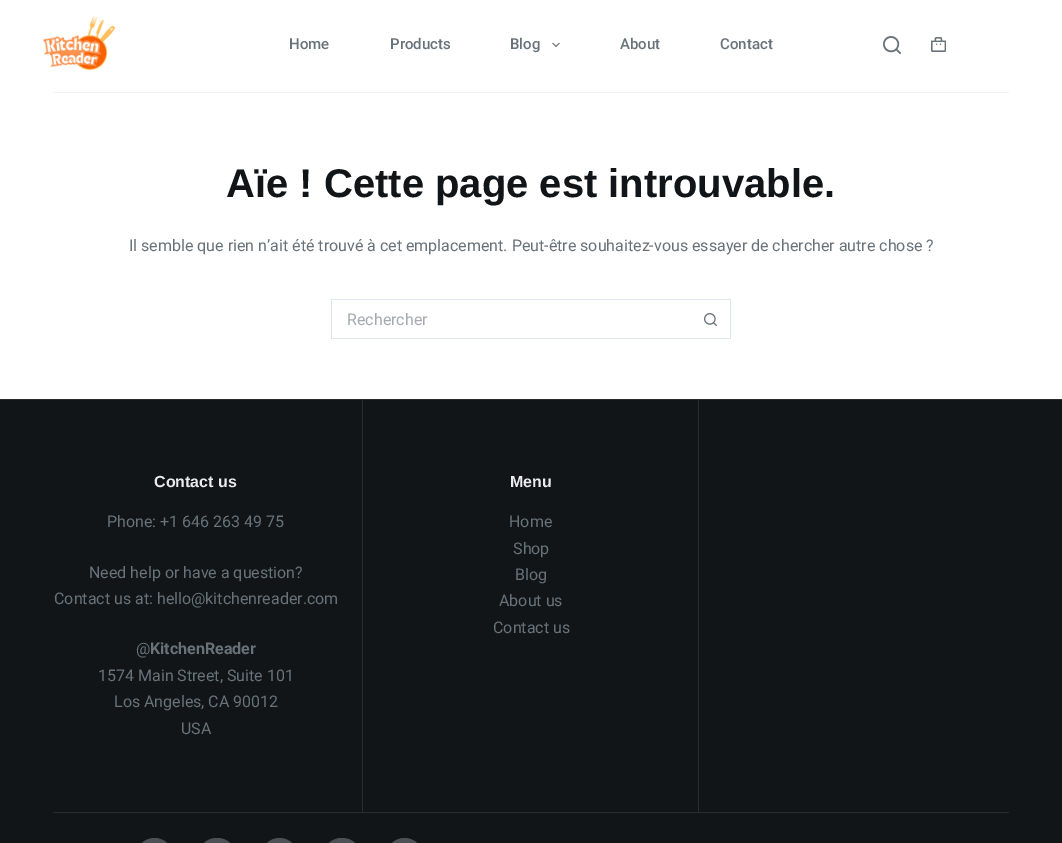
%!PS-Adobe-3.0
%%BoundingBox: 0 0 1062 843
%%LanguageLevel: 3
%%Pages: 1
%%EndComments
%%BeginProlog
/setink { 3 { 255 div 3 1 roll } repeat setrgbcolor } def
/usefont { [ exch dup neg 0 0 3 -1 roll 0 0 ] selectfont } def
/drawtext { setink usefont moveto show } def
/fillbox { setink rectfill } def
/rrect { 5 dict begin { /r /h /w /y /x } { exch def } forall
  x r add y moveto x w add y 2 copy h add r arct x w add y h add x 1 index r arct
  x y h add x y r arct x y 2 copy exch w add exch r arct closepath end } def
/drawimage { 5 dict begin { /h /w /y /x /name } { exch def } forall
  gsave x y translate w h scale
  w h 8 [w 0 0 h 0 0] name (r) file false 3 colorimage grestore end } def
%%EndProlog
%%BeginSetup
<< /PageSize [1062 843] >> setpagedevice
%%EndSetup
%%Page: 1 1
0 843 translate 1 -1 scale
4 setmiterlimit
0 0 1062 843 255 255 255 fillbox
53 92 956 1 242 242 242 fillbox
(assets/img1.rgb) 43 16 72 54 drawimage
(Home) 289 49 /Roboto-Medium 15 104 114 121 drawtext
(Products) 390 49 /Roboto-Medium 15 104 114 121 drawtext
(Blog) 510 49 /Roboto-Medium 15 104 114 121 drawtext
(assets/img2.rgb) 552 42 8 6 drawimage
(About) 620 49 /Roboto-Medium 15 104 114 121 drawtext
(Contact) 720 49 /Roboto-Medium 15 104 114 121 drawtext
(assets/img3.rgb) 883 36 18 18 drawimage
(assets/img4.rgb) 931 37 15 15 drawimage
(Aïe ! Cette page est introuvable.) 226 197 /LiberationSans-Bold 40 17 21 24 drawtext
(Il semble que rien n’ait été trouvé à cet emplacement. Peut-être souhaitez-vous essayer de chercher autre chose ?) 129 251 /Roboto-Regular 16 104 114 121 drawtext
331 299 400 1 224 229 235 fillbox
331 338 360 1 224 229 235 fillbox
331 299 1 40 224 229 235 fillbox
(Rechercher) 347 325 /Roboto-Regular 16 164 170 175 drawtext
730 299 1 40 224 229 235 fillbox
691 338 40 1 224 229 235 fillbox
(assets/img5.rgb) 704 313 13 13 drawimage
0 400 1062 443 17 21 24 fillbox
0 399 1062 1 41 44 47 fillbox
(Contact us) 154 487 /LiberationSans-Bold 16 233 235 236 drawtext
(Phone: +1 646 263 49 75) 107 527 /Roboto-Regular 16 104 114 121 drawtext
(Need help or have a question?) 89 578 /Roboto-Regular 16 104 114 121 drawtext
(Contact us at: hello@kitchenreader.com) 54 604 /Roboto-Regular 16 104 114 121 drawtext
(@) 136 654 /Roboto-Regular 16 104 114 121 drawtext
(KitchenReader) 150 654 /Roboto-Bold 16 104 114 121 drawtext
(1574 Main Street, Suite 101) 98 681 /Roboto-Regular 16 104 114 121 drawtext
(Los Angeles, CA 90012) 114 707 /Roboto-Regular 16 104 114 121 drawtext
(USA) 181 734 /Roboto-Regular 16 104 114 121 drawtext
362 400 1 412 41 44 47 fillbox
(Menu) 510 487 /LiberationSans-Bold 16 233 235 236 drawtext
(Home) 509 527 /Roboto-Regular 16 104 114 121 drawtext
(Shop) 513 554 /Roboto-Regular 16 104 114 121 drawtext
(Blog) 515 580 /Roboto-Regular 16 104 114 121 drawtext
(About us) 499 606 /Roboto-Regular 16 104 114 121 drawtext
(Contact us) 493 633 /Roboto-Regular 16 104 114 121 drawtext
698 400 1 412 41 44 47 fillbox
53 812 956 1 41 44 47 fillbox
77 81 85 setink
136 838 37 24 18.5 rrect fill
198 838 38 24 18.5 rrect fill
261 838 37 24 18.5 rrect fill
323 838 38 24 18.5 rrect fill
386 838 37 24 18.5 rrect fill
showpage
%%EOF
